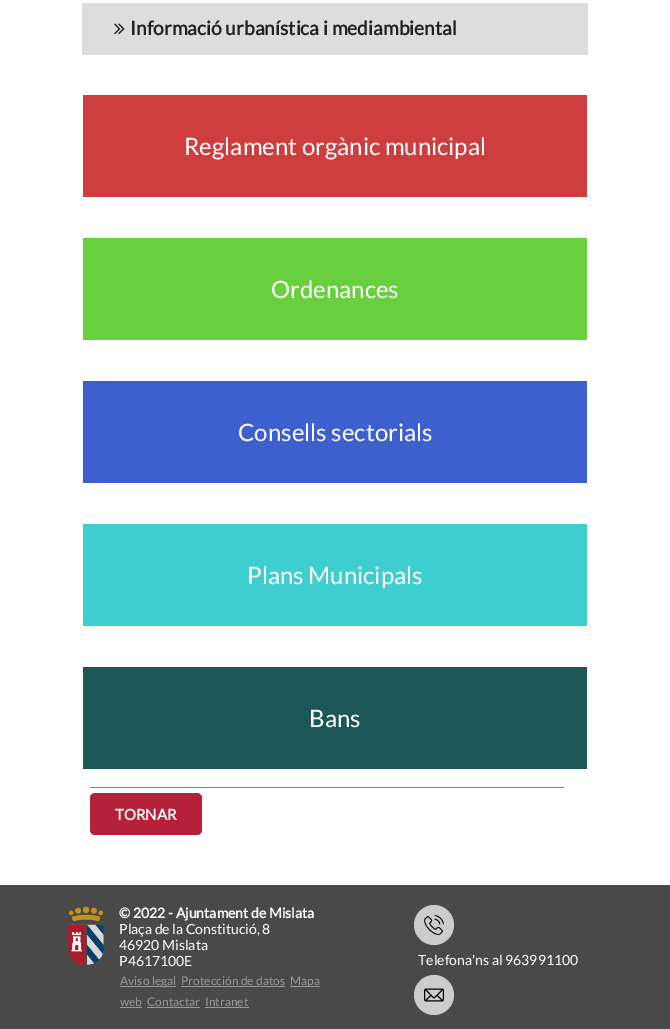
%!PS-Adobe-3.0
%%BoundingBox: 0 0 670 1029
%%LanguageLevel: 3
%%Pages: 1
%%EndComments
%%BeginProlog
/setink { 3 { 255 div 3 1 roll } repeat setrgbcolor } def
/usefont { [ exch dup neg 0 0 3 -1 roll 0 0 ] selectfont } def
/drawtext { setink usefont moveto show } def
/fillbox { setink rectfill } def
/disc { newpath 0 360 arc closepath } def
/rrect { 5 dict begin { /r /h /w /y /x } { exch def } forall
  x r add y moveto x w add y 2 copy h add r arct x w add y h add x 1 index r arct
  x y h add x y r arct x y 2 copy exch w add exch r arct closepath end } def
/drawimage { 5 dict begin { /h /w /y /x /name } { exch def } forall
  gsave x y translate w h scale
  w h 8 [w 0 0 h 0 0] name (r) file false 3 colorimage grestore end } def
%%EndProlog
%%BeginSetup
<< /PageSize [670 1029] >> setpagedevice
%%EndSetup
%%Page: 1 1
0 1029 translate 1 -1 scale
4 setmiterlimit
0 0 670 1029 255 255 255 fillbox
82 3 506 52 221 221 221 fillbox
(assets/img1.rgb) 114 23 11 12 drawimage
(Informació urbanística i mediambiental) 130 35 /Lato-Bold 19.25 34 34 34 drawtext
83 95 504 102 207 62 62 fillbox
(Reglament orgànic municipal) 184 155 /Lato-Regular 24 255 255 255 drawtext
83 238 504 102 104 207 62 fillbox
(Ordenances) 271 298 /Lato-Regular 24 255 255 255 drawtext
83 381 504 102 62 96 207 fillbox
(Consells sectorials) 238 441 /Lato-Regular 24 255 255 255 drawtext
83 524 504 102 62 206 207 fillbox
(Plans Municipals) 247 584 /Lato-Regular 24 255 255 255 drawtext
83 667 504 102 27 87 87 fillbox
(Bans) 309 727 /Lato-Regular 24 255 255 255 drawtext
90 787 474 1 128 128 128 fillbox
180 33 57 setink
90 793 112 42 5 rrect fill
(TORNAR) 115 820 /Lato-Bold 15 255 255 255 drawtext
0 885 670 144 73 73 73 fillbox
(assets/img2.rgb) 68 906 36 59 drawimage
(© 2022 - Ajuntament de Mislata) 119 918 /Lato-Bold 14 255 255 255 drawtext
(Plaça de la Constitució, 8) 119 934 /Lato-Regular 14 255 255 255 drawtext
(46920 Mislata) 119 950 /Lato-Regular 14 255 255 255 drawtext
(P4617100E) 119 966 /Lato-Regular 14 255 255 255 drawtext
120 986 56 1 153 153 153 fillbox
(Aviso legal) 120 985 /Lato-Regular 12 153 153 153 drawtext
(Protección de datos) 181 985 /Lato-Regular 12 153 153 153 drawtext
181 986 104 1 153 153 153 fillbox
290 986 30 1 153 153 153 fillbox
(Mapa) 290 985 /Lato-Regular 12 153 153 153 drawtext
(web) 120 1006 /Lato-Regular 12 153 153 153 drawtext
120 1007 22 1 153 153 153 fillbox
(Contactar) 147 1006 /Lato-Regular 12 153 153 153 drawtext
147 1007 53 1 153 153 153 fillbox
(Intranet) 205 1006 /Lato-Regular 12 153 153 153 drawtext
205 1007 44 1 153 153 153 fillbox
204 204 204 setink
434 925 20 disc fill
(assets/img3.rgb) 424 915 20 20 drawimage
(Telefona'ns al 963991100) 418 965 /Lato-Regular 14 255 255 255 drawtext
204 204 204 setink
434 995 20 disc fill
(assets/img4.rgb) 424 988 20 14 drawimage
showpage
%%EOF
